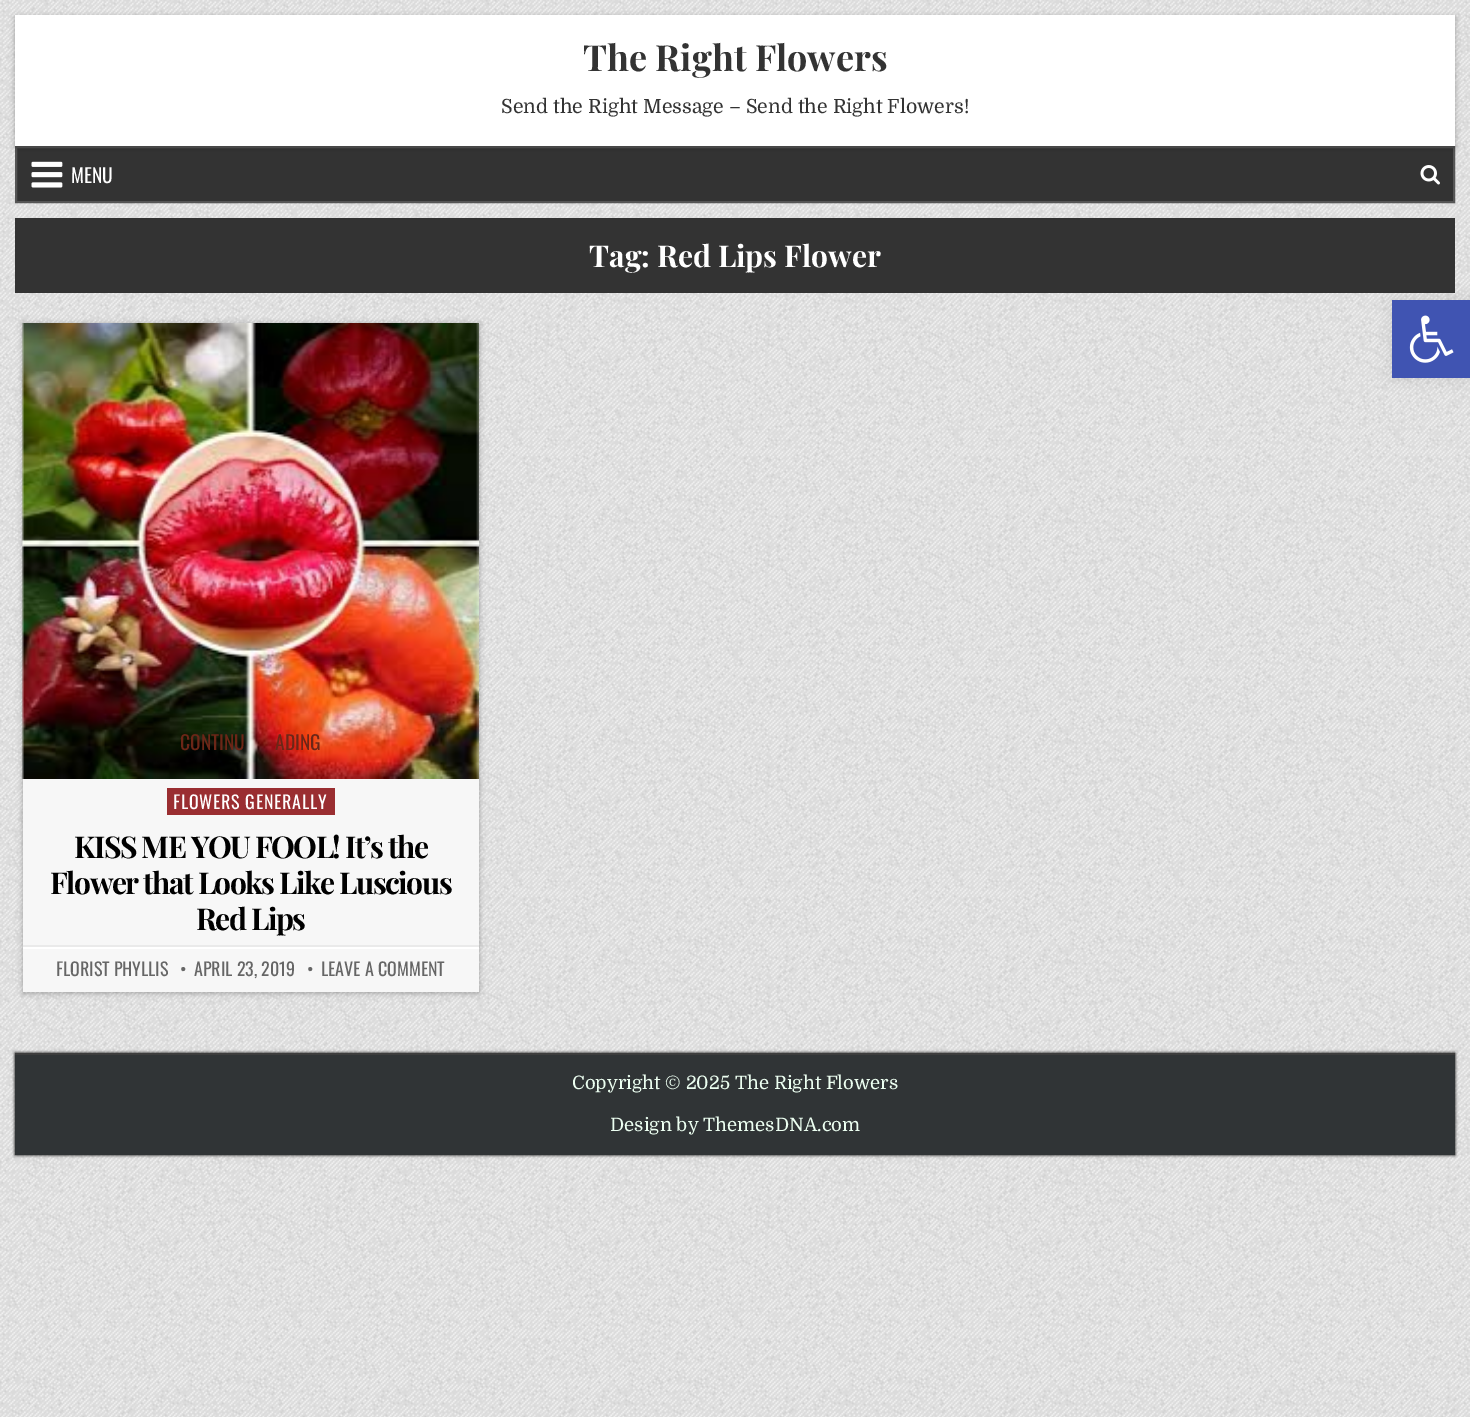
%!PS-Adobe-3.0
%%BoundingBox: 0 0 1470 1417
%%LanguageLevel: 3
%%Pages: 1
%%EndComments
%%BeginProlog
/setink { 3 { 255 div 3 1 roll } repeat setrgbcolor } def
/usefont { [ exch dup neg 0 0 3 -1 roll 0 0 ] selectfont } def
/drawtext { setink usefont moveto show } def
/fillbox { setink rectfill } def
/setalpha { dup .setfillconstantalpha .setstrokeconstantalpha } def
/rrect { 5 dict begin { /r /h /w /y /x } { exch def } forall
  x r add y moveto x w add y 2 copy h add r arct x w add y h add x 1 index r arct
  x y h add x y r arct x y 2 copy exch w add exch r arct closepath end } def
/softshadow { 12 dict begin { /a /b /q /h /w /y /x } { exch def } forall gsave /was 0 def
  9 -2 -9 { dup b mul 4 div /e exch def 1 sub .425 mul 2.718 exch exp 1 add a .99 .min exch div /now exch def
    1 1 now sub 1 was sub div sub setalpha /was now def
    w h .min e 2 mul add 0 gt { x e sub y e sub w e 2 mul add h e 2 mul add
      q e add b .6 mul add w h .min 2 div e add .min 0 .max rrect fill } if } for grestore end } def
/drawimage { 5 dict begin { /h /w /y /x /name } { exch def } forall
  gsave x y translate w h scale
  w h 8 [w 0 0 h 0 0] name (r) file false 3 colorimage grestore end } def
%%EndProlog
%%BeginSetup
<< /PageSize [1470 1417] /PageUsesTransparency true >> setpagedevice
%%EndSetup
%%Page: 1 1
0 .pushpdf14devicefilter
0 1417 translate 1 -1 scale
4 setmiterlimit
0 0 1470 1417 255 255 255 fillbox
(assets/img1.rgb) 0 0 1470 1417 drawimage
51 51 51 setink
16 147 moveto 1454 147 lineto 1454 202 lineto 16 202 lineto closepath gsave fill grestore
85 85 85 setink
2 setlinewidth
stroke
0 0 0 setink
15 17 1440 130 0 3 0.3 softshadow
15 15 1440 131 255 255 255 fillbox
(The Right Flowers) 583 71 /PlayfairDisplay-Bold 36 51 51 51 drawtext
(Send the Right Message – Send the Right Flowers!) 501 113 /Domine-Regular 19.5 51 51 51 drawtext
(assets/img2.rgb) 31 161 32 27 drawimage
(MENU) 71 183 /Oswald-Regular 19.5 255 255 255 drawtext
(assets/img3.rgb) 1420 165 20 20 drawimage
15 218 1440 75 51 51 51 fillbox
(Tag: Red Lips Flower) 589 267 /PlayfairDisplay-Bold 30 255 255 255 drawtext
0 0 0 setink
23 324 456 669 0 3 0.3 softshadow
23 323 456 669 247 247 247 fillbox
(assets/img4.rgb) 22 323 457 456 drawimage
(CONTINU) 180 750 /Oswald-Regular 19.5 108 38 23 drawtext
(ADING) 275 750 /Oswald-Regular 19.5 108 38 23 drawtext
167 788 168 27 154 46 49 fillbox
/Oswald-Regular 18 usefont
255 255 255 setink
173 809 moveto 0.75 0 (FLOWERS GENERALLY) ashow
23 945 456 2 234 234 234 fillbox
/PlayfairDisplay-Bold 30 usefont
0 0 0 setink
74 858 moveto -1.5 0 (KISS ME YOU FOOL! It’s the) ashow
50 894 moveto -1.5 0 (Flower that Looks Like Luscious) ashow
196 930 moveto -1.5 0 (Red Lips) ashow
23 947 456 2 255 255 255 fillbox
(FLORIST PHYLLIS) 56 976 /Oswald-Regular 18 102 102 102 drawtext
(•) 180 976 /Oswald-Regular 18 102 102 102 drawtext
(APRIL 23, 2019) 194 976 /Oswald-Regular 18 102 102 102 drawtext
(•) 307 976 /Oswald-Regular 18 102 102 102 drawtext
(LEAVE A COMMENT) 321 976 /Oswald-Regular 18 102 102 102 drawtext
0 0 0 setink
15 1053 1440 102 0 1.5 1 softshadow
15 1055 1440 100 48 52 54 fillbox
15 1053 1440 2 61 61 61 fillbox
(Copyright © 2025 The Right Flowers) 572 1089 /Domine-Regular 18.5 236 255 241 drawtext
(Design by ThemesDNA.com) 610 1131 /Domine-Regular 18.5 236 255 241 drawtext
0 0 0 setink
1392 300 78 78 0 7.5 0.1 softshadow
1392 300 78 78 64 84 178 fillbox
(assets/img5.rgb) 1409 315 45 48 drawimage
.poppdf14devicefilter showpage
%%EOF
